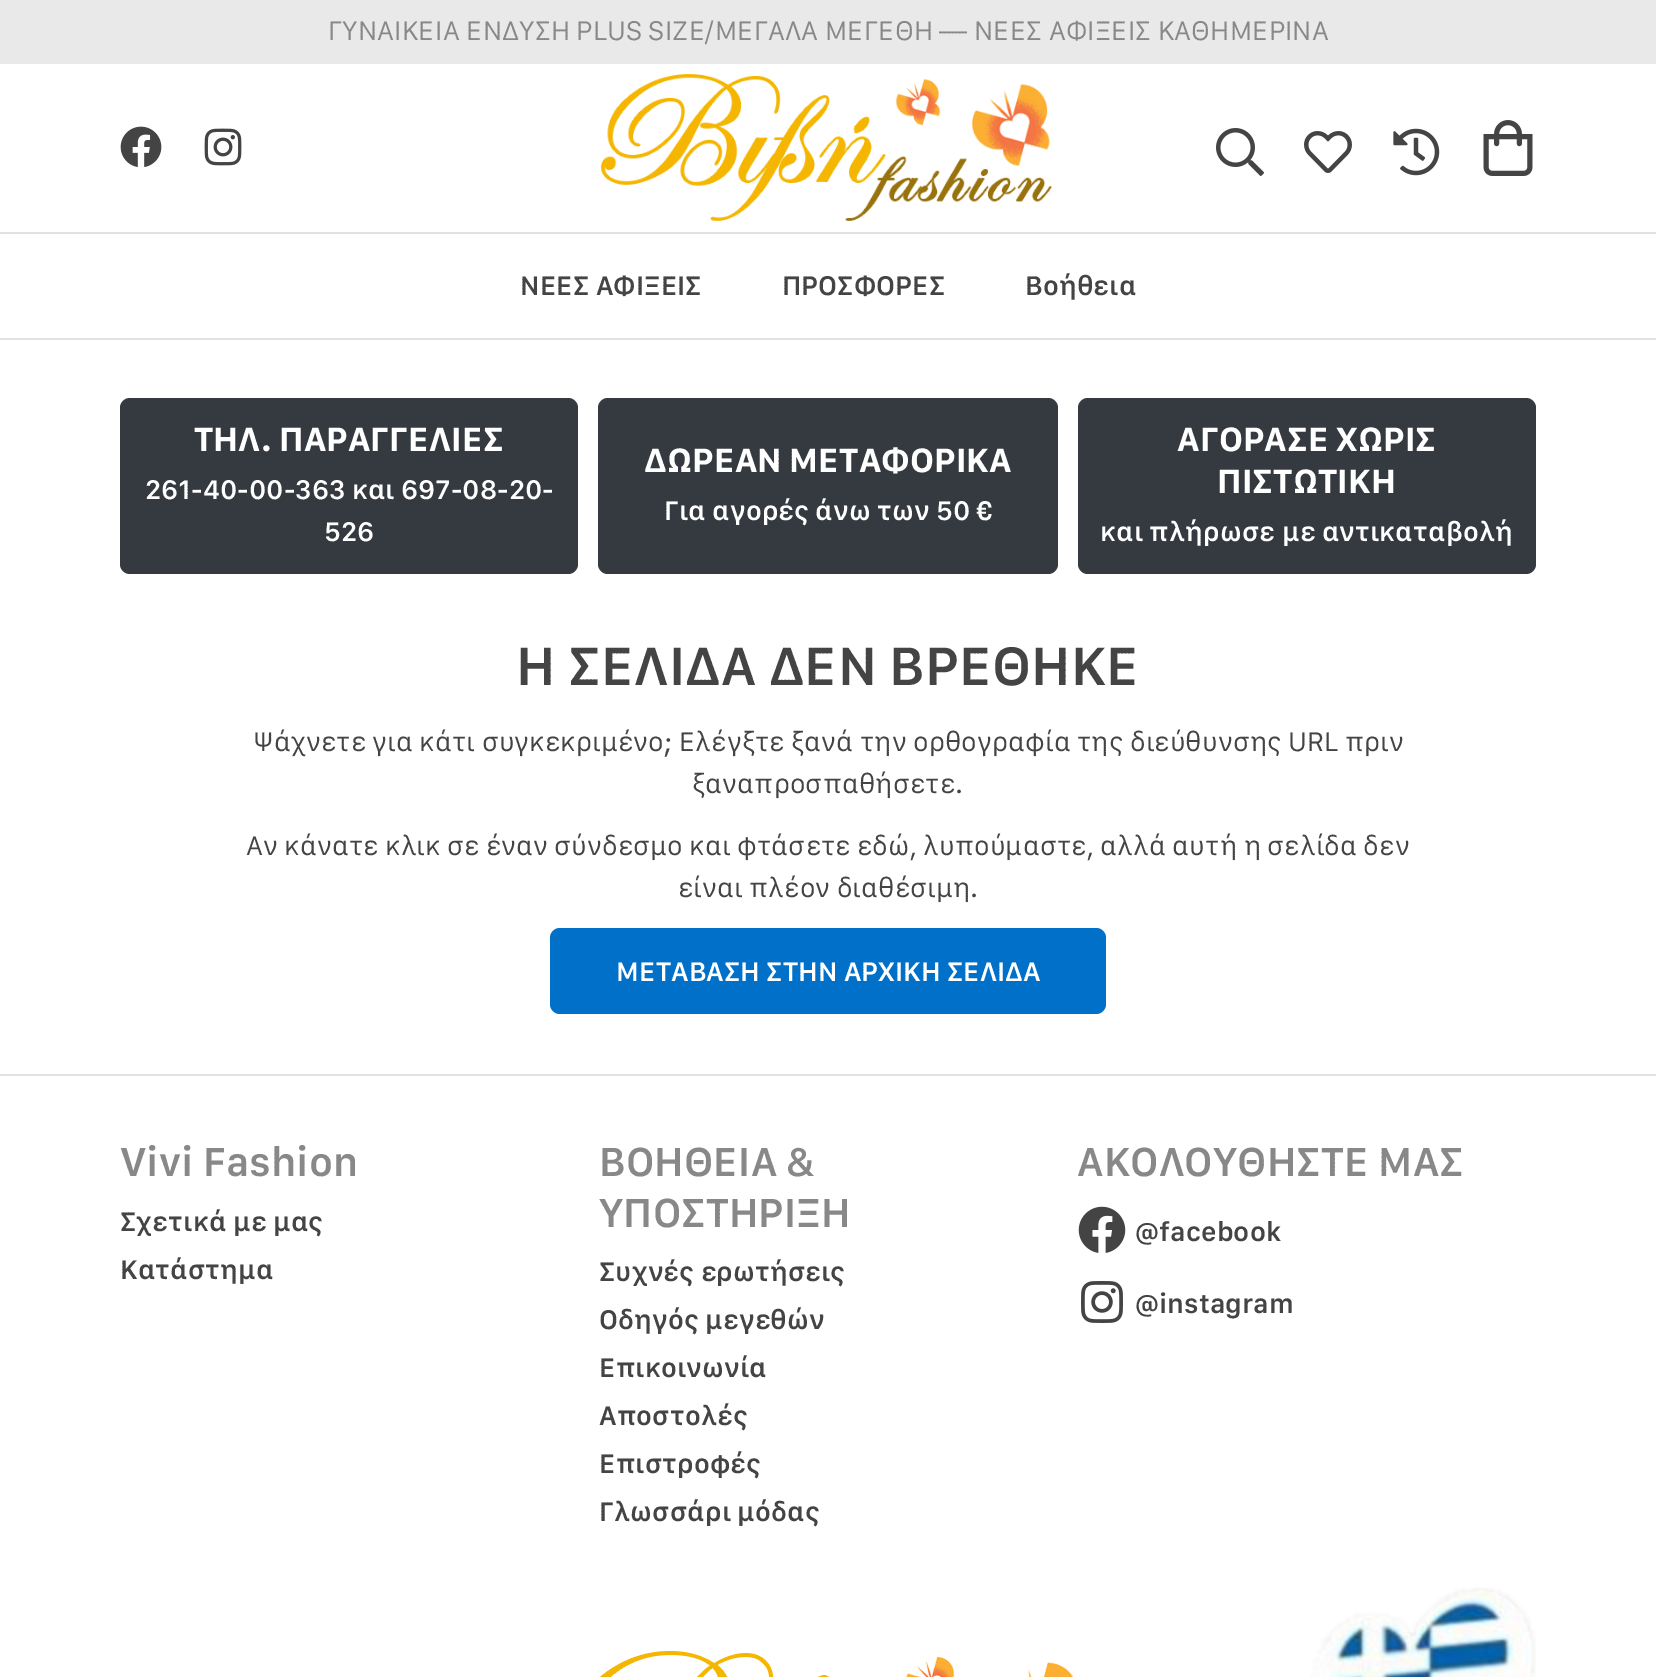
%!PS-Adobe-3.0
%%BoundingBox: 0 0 1656 1677
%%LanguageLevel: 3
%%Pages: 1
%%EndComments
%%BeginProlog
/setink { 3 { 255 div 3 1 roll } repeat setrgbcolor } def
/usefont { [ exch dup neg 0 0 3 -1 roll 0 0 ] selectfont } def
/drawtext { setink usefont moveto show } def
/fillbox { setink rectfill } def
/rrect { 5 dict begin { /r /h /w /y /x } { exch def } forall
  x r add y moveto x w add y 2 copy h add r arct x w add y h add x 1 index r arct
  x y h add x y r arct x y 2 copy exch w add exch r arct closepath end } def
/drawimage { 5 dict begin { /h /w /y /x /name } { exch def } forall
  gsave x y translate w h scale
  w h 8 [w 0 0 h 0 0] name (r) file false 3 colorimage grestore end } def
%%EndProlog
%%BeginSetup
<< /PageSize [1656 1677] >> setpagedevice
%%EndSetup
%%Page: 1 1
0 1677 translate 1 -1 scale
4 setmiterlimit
0 0 1656 1677 255 255 255 fillbox
0 0 1656 64 233 233 233 fillbox
(ΓΥΝΑΙΚΕΙΑ ΕΝΔΥΣΗ PLUS SIZE/ΜΕΓΑΛΑ ΜΕΓΕΘΗ — ΝΕΕΣ ΑΦΙΞΕΙΣ ΚΑΘΗΜΕΡΙΝΑ) 328 40 /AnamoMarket-Regular 28 136 136 136 drawtext
0 232 1656 2 222 226 230 fillbox
(assets/img1.rgb) 120 126 42 41 drawimage
(assets/img2.rgb) 204 128 38 38 drawimage
(assets/img3.rgb) 600 74 452 147 drawimage
(assets/img4.rgb) 1216 128 48 48 drawimage
(assets/img5.rgb) 1304 131 48 42 drawimage
(assets/img6.rgb) 1393 128 47 48 drawimage
(assets/img7.rgb) 1483 120 50 56 drawimage
0 338 1656 2 222 226 230 fillbox
(ΝΕΕΣ ΑΦΙΞΕΙΣ) 520 295 /AnamoMarket-SemiBold 28 68 68 68 drawtext
(ΠΡΟΣΦΟΡΕΣ) 782 295 /AnamoMarket-SemiBold 28 68 68 68 drawtext
(Βοήθεια) 1025 295 /AnamoMarket-SemiBold 28 68 68 68 drawtext
52 58 64 setink
120 398 458 176 10 rrect fill
(ΤΗΛ. ΠΑΡΑΓΓΕΛΙΕΣ) 194 451 /AnamoMarket-Bold 35 255 255 255 drawtext
(261-40-00-363 και 697-08-20-) 145 499 /AnamoMarket-SemiBold 28 255 255 255 drawtext
(526) 324 541 /AnamoMarket-SemiBold 28 255 255 255 drawtext
52 58 64 setink
598 398 460 176 10 rrect fill
(ΔΩΡΕΑΝ ΜΕΤΑΦΟΡΙΚΑ) 644 472 /AnamoMarket-Bold 35 255 255 255 drawtext
(Για αγορές άνω των 50 €) 664 520 /AnamoMarket-SemiBold 28 255 255 255 drawtext
52 58 64 setink
1078 398 458 176 10 rrect fill
(ΑΓΟΡΑΣΕ ΧΩΡΙΣ) 1177 451 /AnamoMarket-Bold 35 255 255 255 drawtext
(ΠΙΣΤΩΤΙΚΗ) 1217 493 /AnamoMarket-Bold 35 255 255 255 drawtext
(και πλήρωσε με αντικαταβολή) 1100 541 /AnamoMarket-SemiBold 28 255 255 255 drawtext
(Η ΣΕΛΙΔΑ ΔΕΝ ΒΡΕΘΗΚΕ) 516 685 /AnamoMarket-SemiBold 56 68 68 68 drawtext
(Ψάχνετε για κάτι συγκεκριμένο; Ελέγξτε ξανά την ορθογραφία της διεύθυνσης URL πριν) 253 751 /AnamoMarket-Regular 28 68 68 68 drawtext
(ξαναπροσπαθήσετε.) 692 793 /AnamoMarket-Regular 28 68 68 68 drawtext
(Αν κάνατε κλικ σε έναν σύνδεσμο και φτάσετε εδώ, λυπούμαστε, αλλά αυτή η σελίδα δεν) 246 855 /AnamoMarket-Regular 28 68 68 68 drawtext
(είναι πλέον διαθέσιμη.) 678 897 /AnamoMarket-Regular 28 68 68 68 drawtext
0 112 201 setink
550 928 556 86 10 rrect fill
(ΜΕΤΑΒΑΣΗ ΣΤΗΝ ΑΡΧΙΚΗ ΣΕΛΙΔΑ) 616 981 /AnamoMarket-SemiBold 28 255 255 255 drawtext
0 1074 1656 2 222 226 230 fillbox
(Vivi Fashion) 120 1176 /AnamoMarket-SemiBold 42 136 136 136 drawtext
(Σχετικά με μας) 120 1231 /AnamoMarket-SemiBold 28 68 68 68 drawtext
(Κατάστημα) 120 1279 /AnamoMarket-SemiBold 28 68 68 68 drawtext
(ΒΟΗΘΕΙΑ &) 599 1176 /AnamoMarket-SemiBold 42 136 136 136 drawtext
(ΥΠΟΣΤΗΡΙΞΗ) 599 1227 /AnamoMarket-SemiBold 42 136 136 136 drawtext
(Συχνές ερωτήσεις) 599 1281 /AnamoMarket-SemiBold 28 68 68 68 drawtext
(Οδηγός μεγεθών) 599 1329 /AnamoMarket-SemiBold 28 68 68 68 drawtext
(Επικοινωνία) 599 1377 /AnamoMarket-SemiBold 28 68 68 68 drawtext
(Αποστολές) 599 1425 /AnamoMarket-SemiBold 28 68 68 68 drawtext
(Επιστροφές) 599 1473 /AnamoMarket-SemiBold 28 68 68 68 drawtext
(Γλωσσάρι μόδας) 599 1521 /AnamoMarket-SemiBold 28 68 68 68 drawtext
(ΑΚΟΛΟΥΘΗΣΤΕ ΜΑΣ) 1077 1176 /AnamoMarket-SemiBold 42 136 136 136 drawtext
(assets/img8.rgb) 1078 1206 48 47 drawimage
(@facebook) 1135 1241 /AnamoMarket-SemiBold 28 68 68 68 drawtext
(assets/img9.rgb) 1081 1281 42 42 drawimage
(@instagram) 1135 1313 /AnamoMarket-SemiBold 28 68 68 68 drawtext
(assets/img10.rgb) 600 1651 474 26 drawimage
(assets/img11.rgb) 1310 1587 226 90 drawimage
showpage
%%EOF
